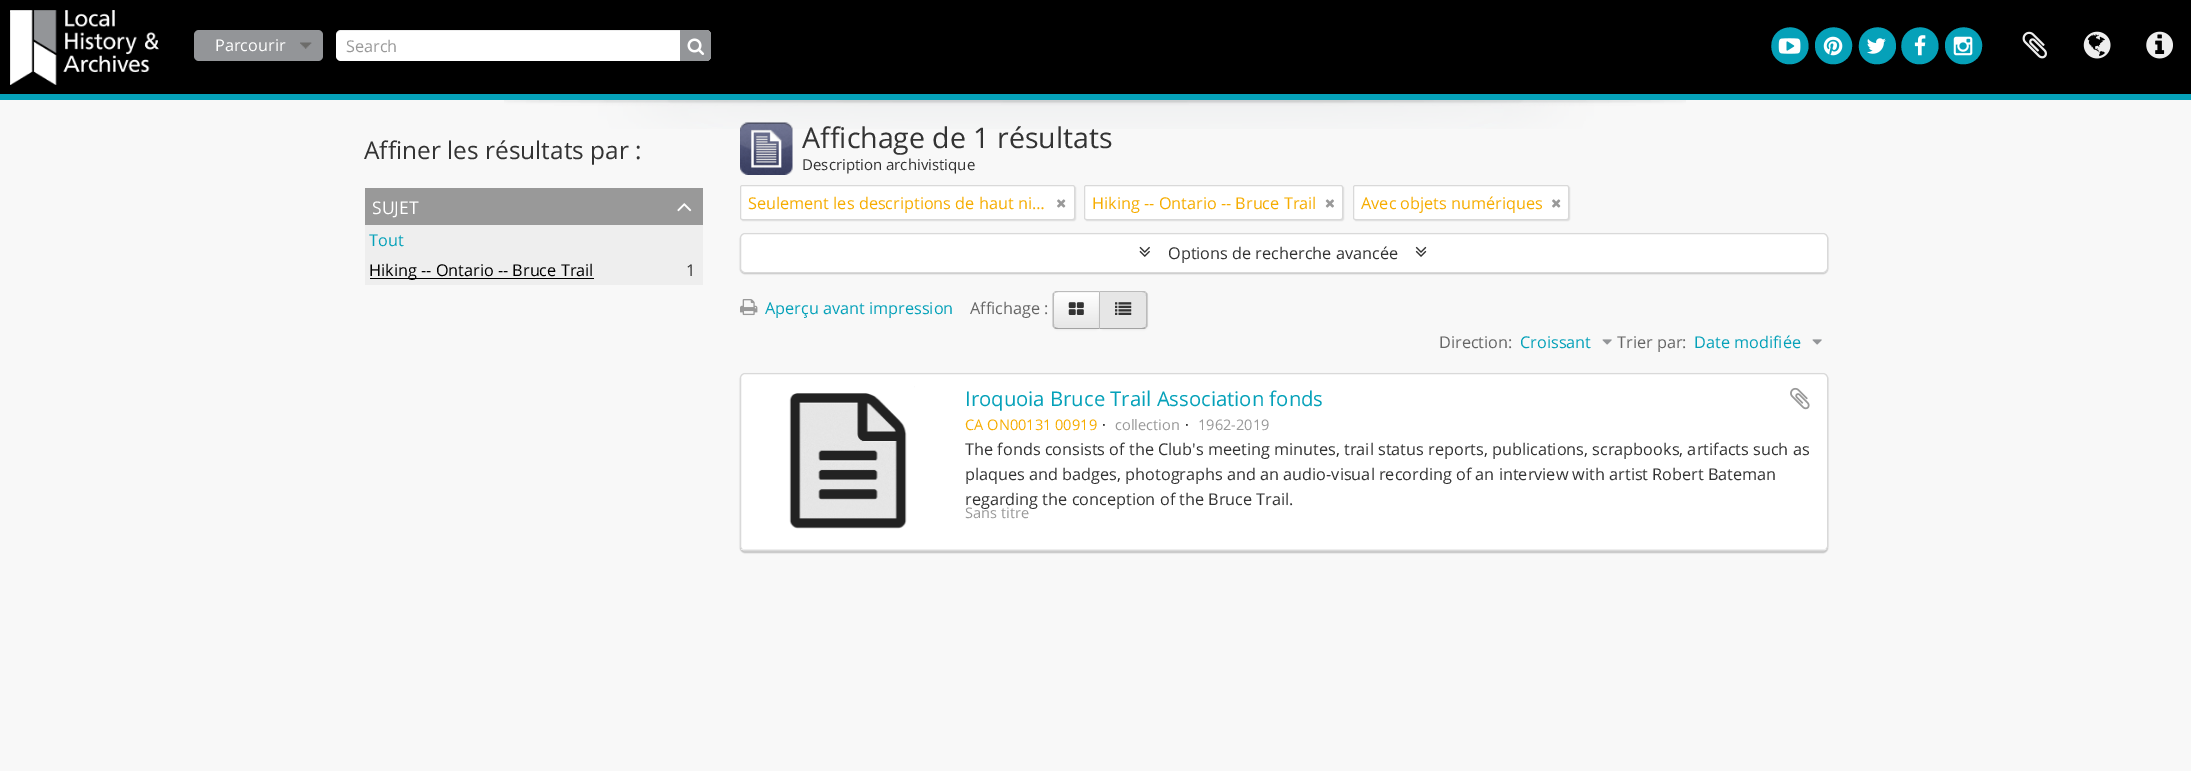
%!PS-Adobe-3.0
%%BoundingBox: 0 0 2191 771
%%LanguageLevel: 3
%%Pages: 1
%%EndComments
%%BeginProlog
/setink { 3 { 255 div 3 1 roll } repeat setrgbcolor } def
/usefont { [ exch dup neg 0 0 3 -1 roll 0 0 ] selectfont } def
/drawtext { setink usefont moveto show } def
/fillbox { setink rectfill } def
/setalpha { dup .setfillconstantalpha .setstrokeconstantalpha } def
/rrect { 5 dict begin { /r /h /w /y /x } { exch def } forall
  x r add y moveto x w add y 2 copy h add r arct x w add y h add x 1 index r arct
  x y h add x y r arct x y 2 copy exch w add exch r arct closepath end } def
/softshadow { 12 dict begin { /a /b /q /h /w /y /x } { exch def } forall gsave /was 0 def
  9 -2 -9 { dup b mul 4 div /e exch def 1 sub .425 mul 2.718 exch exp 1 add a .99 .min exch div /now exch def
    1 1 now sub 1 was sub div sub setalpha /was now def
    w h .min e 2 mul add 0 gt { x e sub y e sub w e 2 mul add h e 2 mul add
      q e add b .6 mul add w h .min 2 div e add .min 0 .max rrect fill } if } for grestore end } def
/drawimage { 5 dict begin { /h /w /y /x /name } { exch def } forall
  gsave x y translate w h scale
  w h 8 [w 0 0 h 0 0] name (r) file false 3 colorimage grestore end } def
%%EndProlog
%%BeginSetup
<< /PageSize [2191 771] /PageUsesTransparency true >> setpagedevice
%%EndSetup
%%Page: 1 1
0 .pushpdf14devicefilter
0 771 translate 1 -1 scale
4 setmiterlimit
0 0 2191 771 248 248 248 fillbox
0 0 2191 94 0 0 0 fillbox
(assets/img1.rgb) 10 10 149 75 drawimage
147 149 152 setink
194 30 129 31 5 rrect fill
(assets/img2.rgb) 300 42 12 7 drawimage
(Parcourir) 215 51 /OpenSans-Regular 16.25 255 255 255 drawtext
336 30 375 31 5 rrect fill
0.07 setalpha
0 0 0 setink
341 31 moveto 706 31 lineto 709 31 711 33 711 36 curveto 711 35 lineto 711 32 709 30 706 30 curveto 341 30 lineto 338 30 336 32 336 35 curveto 336 36 lineto 336 33 338 31 341 31 curveto closepath fill
1 setalpha
(Search) 346 52 /OpenSans-Regular 16.25 153 153 153 drawtext
147 149 152 setink
680 30 moveto 706 30 lineto 709 30 711 32 711 35 curveto 711 56 lineto 711 59 709 61 706 61 curveto 680 61 lineto closepath fill
(assets/img3.rgb) 687 38 18 17 drawimage
5 161 185 setink
1806 36.5 moveto 1808 39.5 1808.5 43.5 1808.5 47 curveto 1807 65 1783 71 1773.5 55 curveto 1772 52 1771 48 1771.5 44.5 curveto 1772.5 26.5 1797 21 1806 36.5 curveto closepath fill
(assets/img4.rgb) 1778 38 23 16 drawimage
1849.5 36.5 moveto 1851.5 39.5 1852.5 43.5 1852 47 curveto 1851 65 1826.5 71 1817.5 55 curveto 1815.5 52 1815 48 1815 44.5 curveto 1816 26.5 1840.5 21 1849.5 36.5 curveto closepath fill
(assets/img5.rgb) 1823 36 20 20 drawimage
1893.5 36.5 moveto 1895.5 39.5 1896 43.5 1896 47 curveto 1894.5 65 1870.5 71 1861 55 curveto 1859.5 52 1858.5 48 1859 44.5 curveto 1860 26.5 1884.5 21 1893.5 36.5 curveto closepath fill
(assets/img6.rgb) 1867 38 19 16 drawimage
1936 36.5 moveto 1938 39.5 1938.5 43.5 1938.5 47 curveto 1937 65 1913 71 1903.5 55 curveto 1902 52 1901 48 1901.5 44.5 curveto 1902.5 26.5 1927 21 1936 36.5 curveto closepath fill
(assets/img7.rgb) 1914 35 12 21 drawimage
1979.5 36.5 moveto 1981.5 39.5 1982.5 43.5 1982 47 curveto 1981 65 1956.5 71 1947.5 55 curveto 1945.5 52 1945 48 1945 44.5 curveto 1946 26.5 1970.5 21 1979.5 36.5 curveto closepath fill
(assets/img8.rgb) 1953 36 20 20 drawimage
(assets/img9.rgb) 2022 31 25 28 drawimage
(assets/img10.rgb) 2083 31 28 28 drawimage
(assets/img11.rgb) 2146 31 27 28 drawimage
0 94 2191 6 5 161 185 fillbox
(assets/img12.rgb) 504 100 1182 29 drawimage
(Affiner les résultats par :) 364 159 /OpenSans-Regular 24.4 51 51 51 drawtext
365 188 338 37 153 153 153 fillbox
(SUJET) 372 214 /OpenSans-Regular 17.5 255 255 255 drawtext
(assets/img13.rgb) 677 203 15 9 drawimage
365 225 338 60 238 238 238 fillbox
(Tout) 369 246 /OpenSans-Regular 16.25 5 161 185 drawtext
370 278 224 1 0 0 0 fillbox
(Hiking -- Ontario -- Bruce Trail) 369 276 /OpenSans-Regular 16.25 0 0 0 drawtext
(1) 686 276 /OpenSans-Regular 16.25 51 51 51 drawtext
(assets/img14.rgb) 740 122 53 53 drawimage
(Affichage de 1 résultats) 802 148 /OpenSans-Regular 28.5 51 51 51 drawtext
(Description archivistique) 802 170 /OpenSans-Regular 15 51 51 51 drawtext
0 0 0 setink
741 186 335 35 2.5 0.5 0.1 softshadow
255 255 255 setink
740.5 185.5 334 34 2 rrect gsave fill grestore
217 217 217 setink
stroke
(Seulement les descriptions de haut ni…) 748 209 /OpenSans-Regular 16.25 246 172 0 drawtext
(assets/img15.rgb) 1057 199 9 9 drawimage
0 0 0 setink
1085 186 259 35 2.5 0.5 0.1 softshadow
255 255 255 setink
1084.5 185.5 258 34 2 rrect gsave fill grestore
217 217 217 setink
stroke
(Hiking -- Ontario -- Bruce Trail) 1092 209 /OpenSans-Regular 16.25 246 172 0 drawtext
(assets/img16.rgb) 1325 199 9 9 drawimage
0 0 0 setink
1354 186 216 35 2.5 0.5 0.1 softshadow
255 255 255 setink
1353.5 185.5 215 34 2 rrect gsave fill grestore
217 217 217 setink
stroke
(Avec objets numériques) 1361 209 /OpenSans-Regular 16.25 246 172 0 drawtext
(assets/img15.rgb) 1552 199 9 9 drawimage
0 0 0 setink
740 234 1088 40 5 0.5 0.2 softshadow
255 255 255 setink
740.5 233.5 1087 39 4.5 rrect gsave fill grestore
217 217 217 setink
stroke
(assets/img17.rgb) 1139 246 11 11 drawimage
(Options de recherche avancée) 1168 259 /OpenSans-Regular 16.25 51 51 51 drawtext
(assets/img18.rgb) 1415 246 12 11 drawimage
(assets/img19.rgb) 740 299 18 17 drawimage
(Aperçu avant impression) 765 314 /OpenSans-Regular 16.25 5 161 185 drawtext
(Affichage :) 970 314 /OpenSans-Regular 16.25 102 102 102 drawtext
0 0 0 setink
1053 293 47 37 5 1 0.05 softshadow
245 245 245 setink
1058 291 moveto 1100 291 lineto 1100 329 lineto 1058 329 lineto 1055 329 1053 327 1053 324 curveto 1053 296 lineto 1053 293 1055 291 1058 291 curveto closepath fill
gsave
1058 291 moveto 1100 291 lineto 1100 329 lineto 1058 329 lineto 1055 329 1053 327 1053 324 curveto 1053 296 lineto 1053 293 1055 291 1058 291 curveto closepath clip newpath
gsave 1053 293 moveto 1099 293 lineto 1099 328 lineto 1053 328 lineto closepath clip newpath
<< /ShadingType 2 /ColorSpace /DeviceRGB /Coords [1076 293 1076 328] /Extend [true true] /Function << /FunctionType 2 /Domain [0 1] /C0 [1 1 1] /C1 [0.902 0.902 0.902] /N 1 >> >> shfill grestore
grestore
187 187 187 setink
1058 292 moveto 1056 292 1055 293 1055 293 curveto 1054 292 lineto 1056 291 lineto 1100 291 lineto 1099 292 lineto closepath fill
162 162 162 setink
1100 329 moveto 1056 329 lineto 1054 328 lineto 1055 327 lineto 1055 327 1056 328 1058 328 curveto 1099 328 lineto closepath fill
187 187 187 setink
1052.5 294 moveto 1053.5 292.5 lineto 1054.5 293.5 lineto 1054 294 1054 295 1054 296 curveto 1054 324 lineto 1054 325 1054 326 1054.5 326.5 curveto 1053.5 327.5 lineto 1052.5 326 lineto closepath fill
(assets/img20.rgb) 1068 302 16 13 drawimage
0 0 0 setink
1099 293 49 37 5 1 0.05 softshadow
230 230 230 setink
1099 291 moveto 1143 291 lineto 1146 291 1148 293 1148 296 curveto 1148 324 lineto 1148 327 1146 329 1143 329 curveto 1099 329 lineto closepath fill
187 187 187 setink
1100 292 moveto 1099 291 lineto 1144 291 lineto 1146 292 lineto 1145 293 lineto 1145 293 1144 292 1142 292 curveto closepath fill
1147.5 326 moveto 1146.5 327.5 lineto 1145.5 326.5 lineto 1146 326 1146 325 1146 324 curveto 1146 296 lineto 1146 295 1146 294 1145.5 293.5 curveto 1146.5 292.5 lineto 1147.5 294 lineto closepath fill
162 162 162 setink
1099 329 moveto 1100 328 lineto 1142 328 lineto 1144 328 1145 327 1145 327 curveto 1146 328 lineto 1144 329 lineto closepath fill
187 187 187 setink
1099 328.5 moveto 1099 291.5 lineto 1100 292.5 lineto 1100 327.5 lineto closepath fill
(assets/img21.rgb) 1115 302 17 13 drawimage
(Direction:) 1439 348 /OpenSans-Regular 16.25 102 102 102 drawtext
(Croissant) 1520 348 /OpenSans-Regular 16.25 5 161 185 drawtext
(assets/img22.rgb) 1602 339 10 6 drawimage
(Trier par:) 1617 348 /OpenSans-Regular 16.25 102 102 102 drawtext
(Date modifiée) 1694 348 /OpenSans-Regular 16.25 5 161 185 drawtext
(assets/img22.rgb) 1812 339 10 6 drawimage
0 0 0 setink
740 374 1088 179 5 0.5 0.2 softshadow
255 255 255 setink
740.5 373.5 1087 177 4.5 rrect gsave fill grestore
217 217 217 setink
stroke
741 549 1085 1 238 238 238 fillbox
(assets/img23.rgb) 789 386 126 143 drawimage
(Iroquoia Bruce Trail Association fonds) 965 406 /OpenSans-Regular 20.3 5 161 185 drawtext
(assets/img24.rgb) 1790 387 20 23 drawimage
(CA ON00131 00919) 965 430 /OpenSans-Regular 14.6 246 172 0 drawtext
(·) 1102 430 /OpenSans-Regular 14.6 0 0 0 drawtext
(collection) 1115 430 /OpenSans-Regular 14.6 153 153 153 drawtext
(·) 1185 430 /OpenSans-Regular 14.6 0 0 0 drawtext
(1962-2019) 1198 430 /OpenSans-Regular 14.6 153 153 153 drawtext
(The fonds consists of the Club's meeting minutes, trail status reports, publications, scrapbooks, artifacts such as) 965 455 /OpenSans-Regular 16.25 51 51 51 drawtext
(plaques and badges, photographs and an audio-visual recording of an interview with artist Robert Bateman) 965 480 /OpenSans-Regular 16.25 51 51 51 drawtext
(regarding the conception of the Bruce Trail.) 965 505 /OpenSans-Regular 16.25 51 51 51 drawtext
(Sans titre) 965 518 /OpenSans-Regular 14.6 153 153 153 drawtext
.poppdf14devicefilter showpage
%%EOF
